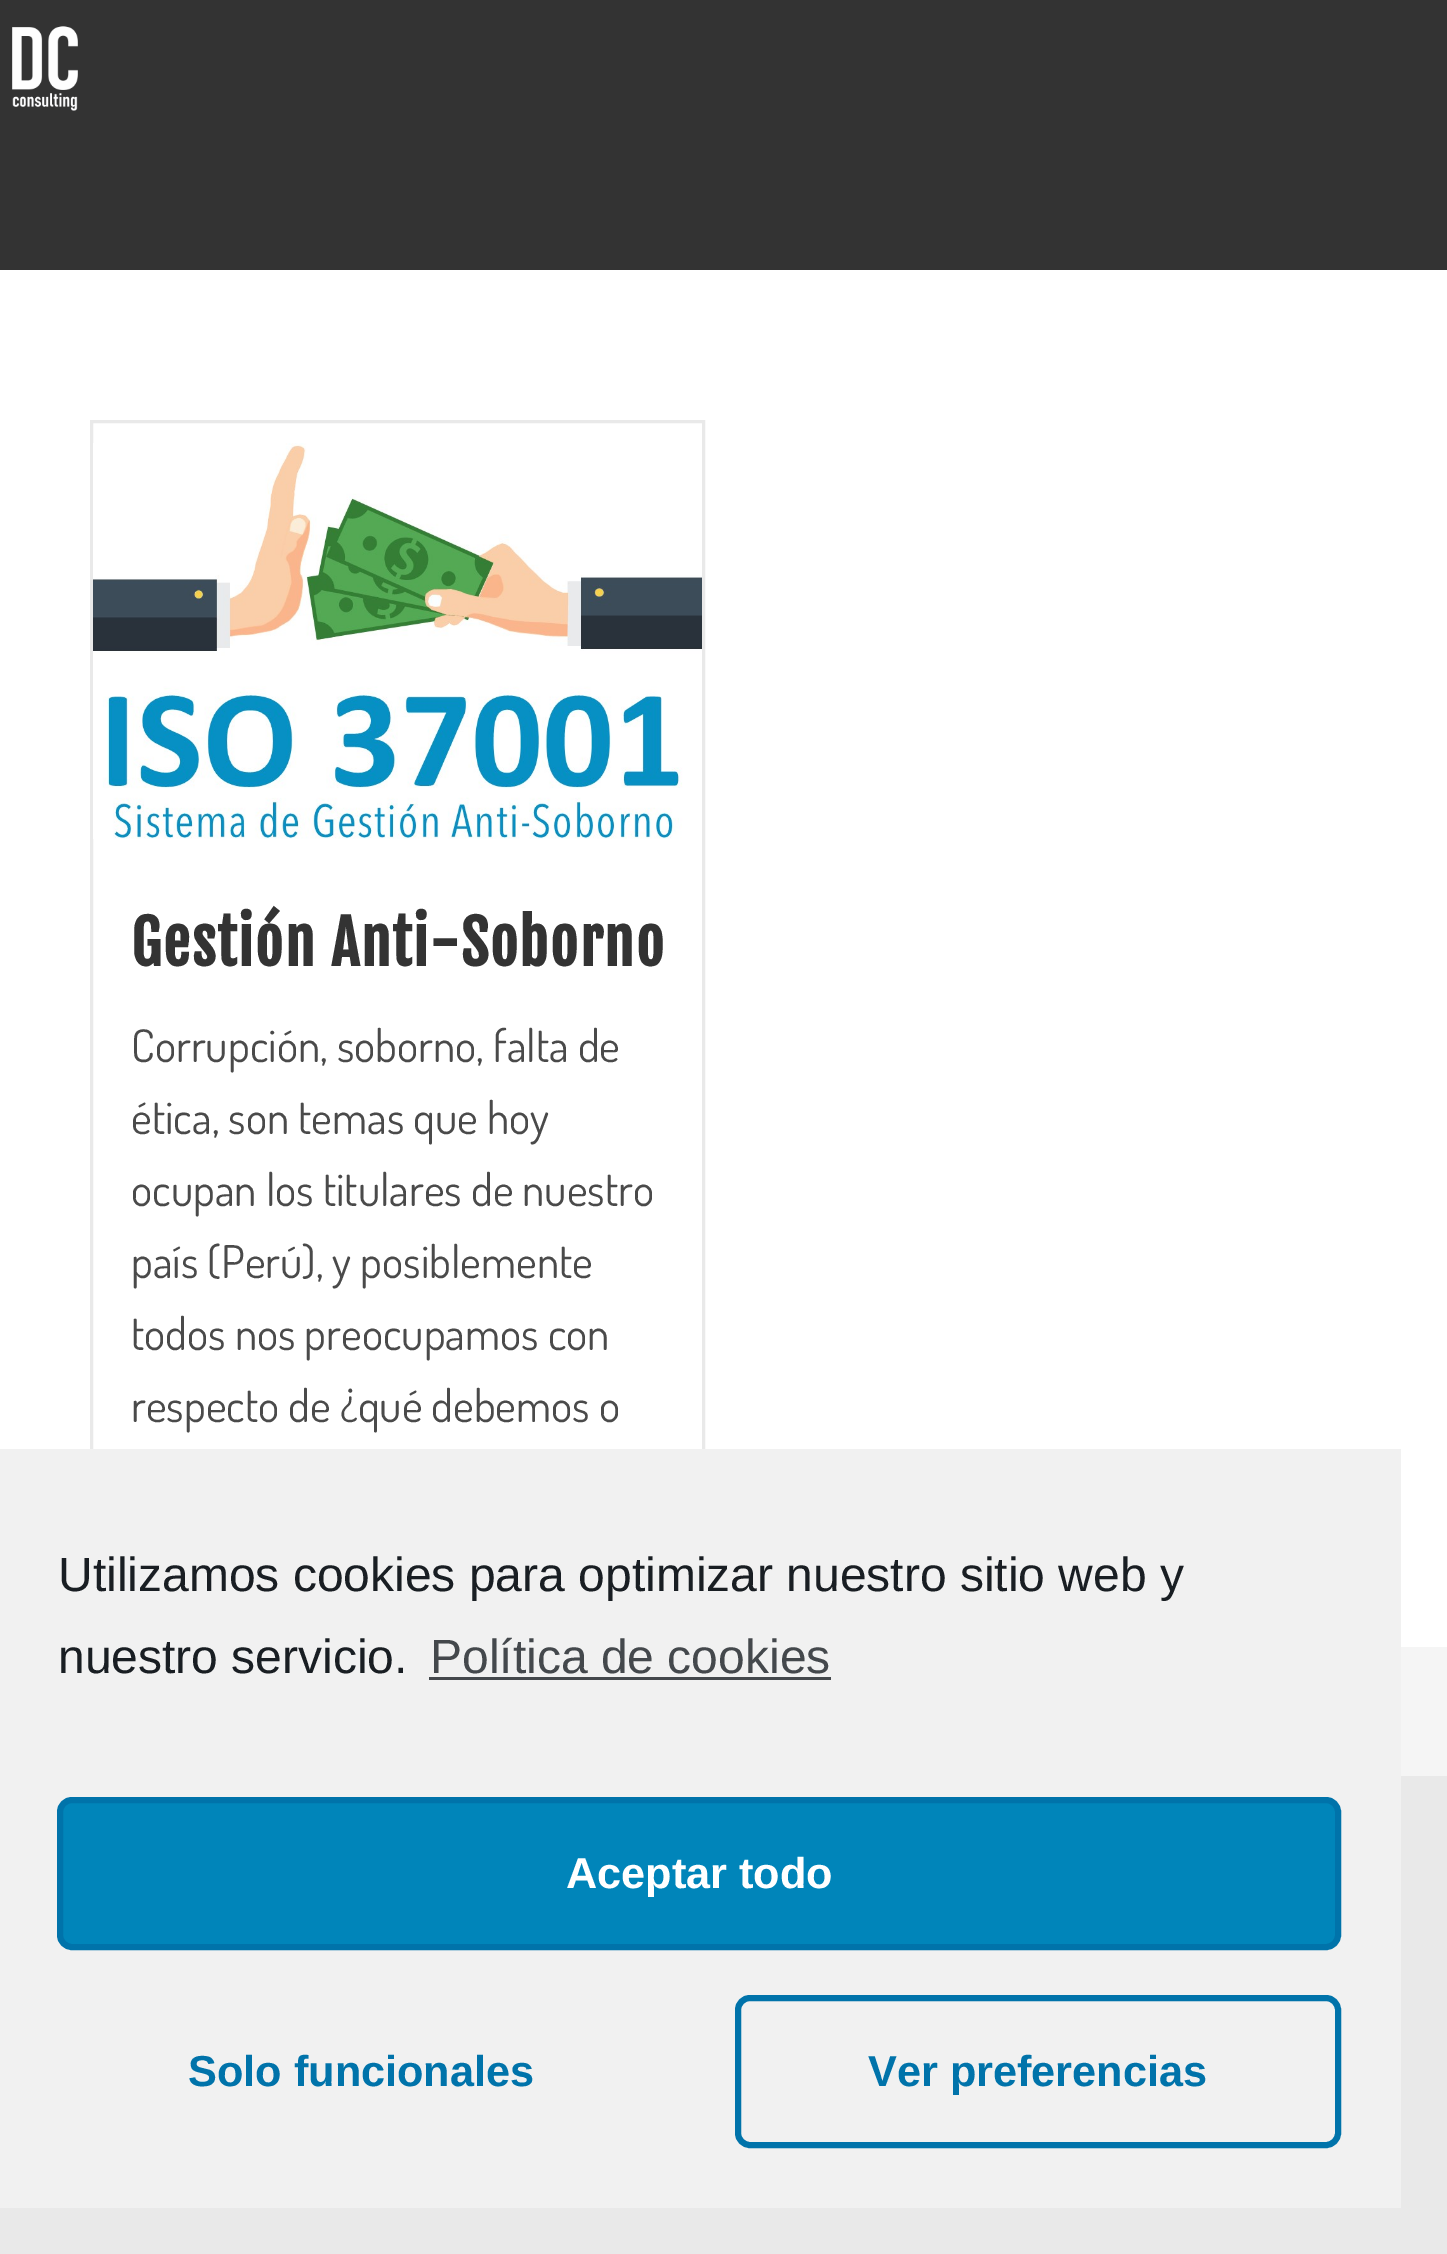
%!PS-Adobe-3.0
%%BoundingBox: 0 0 1447 2254
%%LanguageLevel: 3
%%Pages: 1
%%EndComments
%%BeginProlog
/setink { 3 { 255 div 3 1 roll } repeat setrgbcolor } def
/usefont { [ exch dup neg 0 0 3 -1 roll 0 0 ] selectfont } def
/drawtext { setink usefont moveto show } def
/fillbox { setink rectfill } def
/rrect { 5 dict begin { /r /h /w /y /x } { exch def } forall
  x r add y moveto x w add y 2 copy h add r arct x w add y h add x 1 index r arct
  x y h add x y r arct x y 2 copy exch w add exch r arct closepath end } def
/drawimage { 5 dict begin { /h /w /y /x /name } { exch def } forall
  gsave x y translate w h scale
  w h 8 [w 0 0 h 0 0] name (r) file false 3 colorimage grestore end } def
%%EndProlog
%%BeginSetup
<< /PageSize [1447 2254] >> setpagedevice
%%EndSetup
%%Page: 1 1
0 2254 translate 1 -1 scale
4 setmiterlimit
0 0 1447 2254 233 233 233 fillbox
0 270 1447 1377 255 255 255 fillbox
0 0 1447 270 51 51 51 fillbox
(assets/img1.rgb) 12 26 66 85 drawimage
233 233 233 setink
3 setlinewidth
91.5 421.5 612 1257 rectstroke
(assets/img2.rgb) 93 443 609 396 drawimage
/FjallaOne-Bold 60 usefont
51 51 51 setink
131 966 moveto 1.8 0 (Gestión Anti-Soborno) ashow
(Corrupción, soborno, falta de) 131 1062 /Dosis-Regular 45 74 74 74 drawtext
(ética, son temas que hoy) 131 1134 /Dosis-Regular 45 74 74 74 drawtext
(ocupan los titulares de nuestro) 131 1206 /Dosis-Regular 45 74 74 74 drawtext
(país \(Perú\), y posiblemente) 131 1278 /Dosis-Regular 45 74 74 74 drawtext
(todos nos preocupamos con) 131 1350 /Dosis-Regular 45 74 74 74 drawtext
(respecto de ¿qué debemos o) 131 1422 /Dosis-Regular 45 74 74 74 drawtext
1401 1647 46 129 245 245 245 fillbox
0 1449 1401 759 241 241 241 fillbox
(Utilizamos cookies para optimizar nuestro sitio web y) 58 1591 /LiberationSans-Regular 48 25 30 35 drawtext
(nuestro servicio.) 58 1673 /LiberationSans-Regular 48 25 30 35 drawtext
(Política de cookies) 430 1673 /LiberationSans-Regular 48 68 72 76 drawtext
429 1677 402 3 68 72 76 fillbox
0 133 186 setink
60 1800 1278 147 12 rrect gsave fill grestore
0 115 170 setink
6 setlinewidth
stroke
(Aceptar todo) 566 1888 /LiberationSans-Bold 43.25 255 255 255 drawtext
(Solo funcionales) 188 2086 /LiberationSans-Bold 43.25 0 115 170 drawtext
738 1998 600 147 12 rrect stroke
(Ver preferencias) 868 2086 /LiberationSans-Bold 43.25 0 115 170 drawtext
showpage
%%EOF
